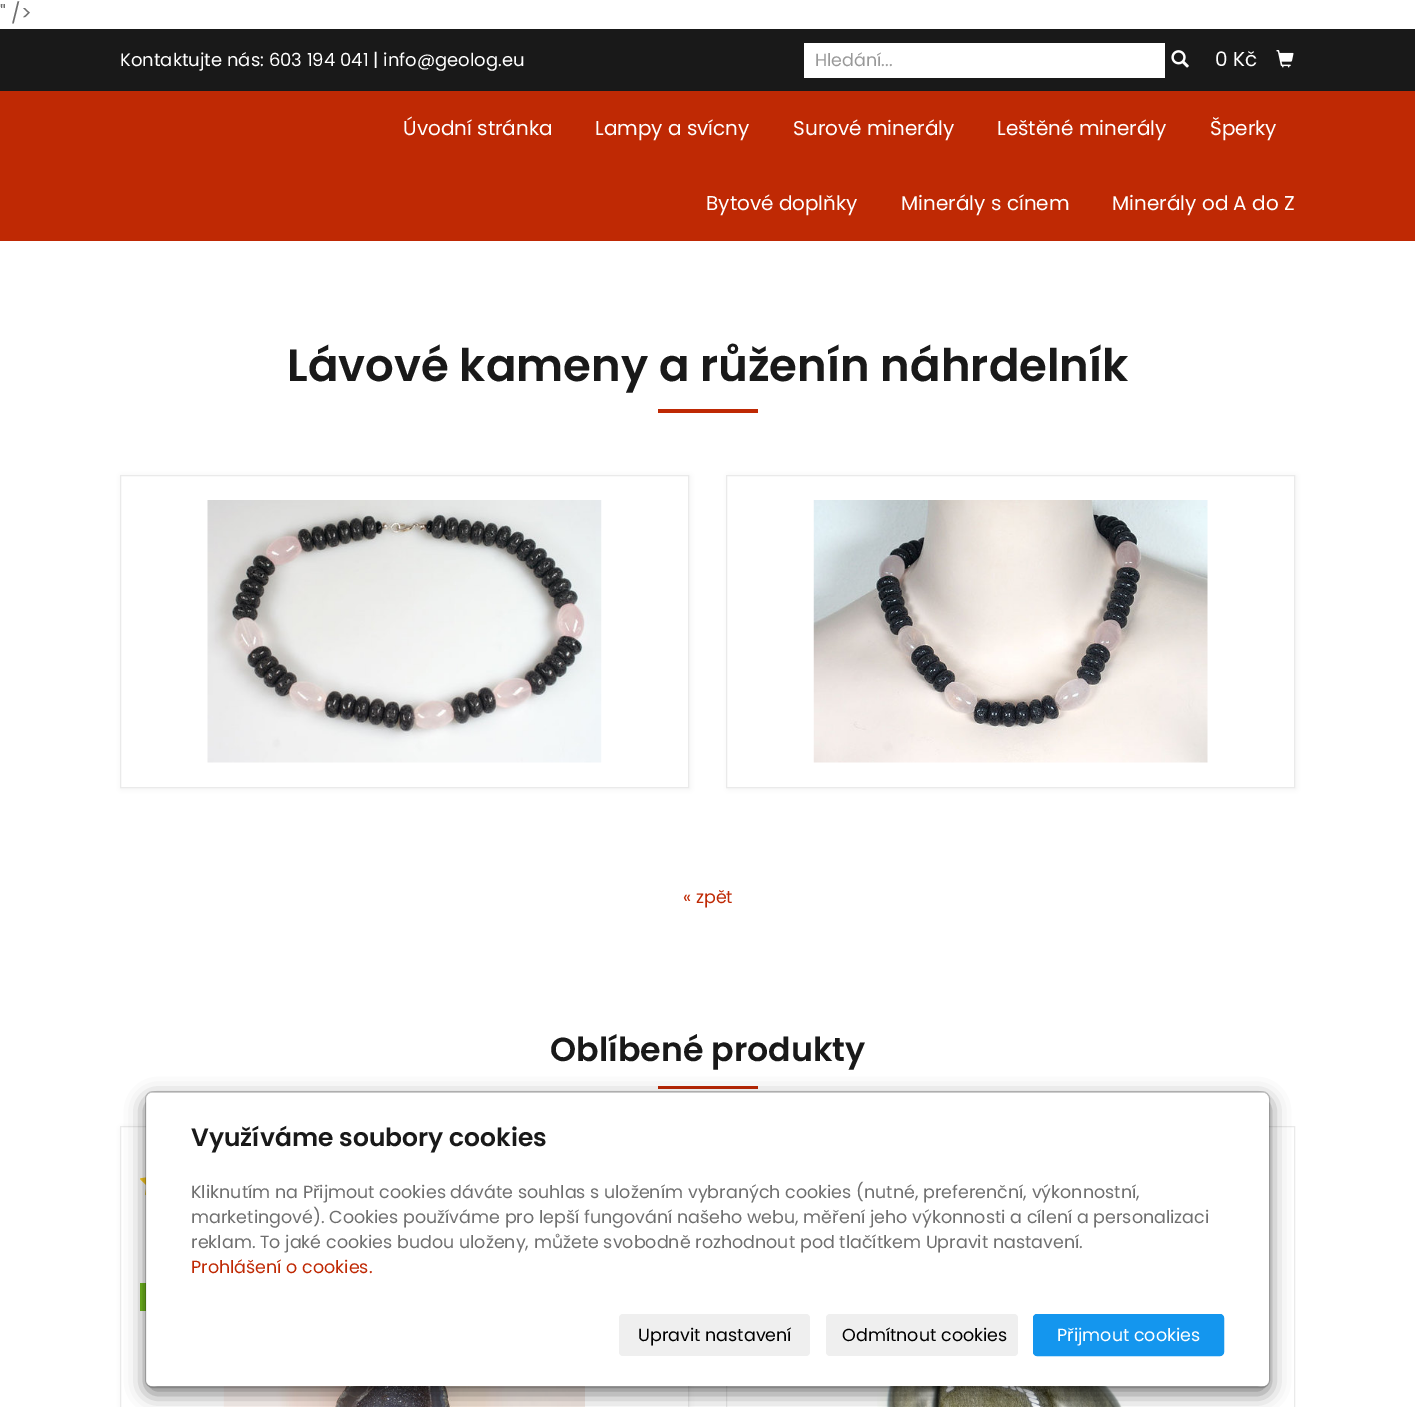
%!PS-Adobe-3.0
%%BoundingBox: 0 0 1415 1407
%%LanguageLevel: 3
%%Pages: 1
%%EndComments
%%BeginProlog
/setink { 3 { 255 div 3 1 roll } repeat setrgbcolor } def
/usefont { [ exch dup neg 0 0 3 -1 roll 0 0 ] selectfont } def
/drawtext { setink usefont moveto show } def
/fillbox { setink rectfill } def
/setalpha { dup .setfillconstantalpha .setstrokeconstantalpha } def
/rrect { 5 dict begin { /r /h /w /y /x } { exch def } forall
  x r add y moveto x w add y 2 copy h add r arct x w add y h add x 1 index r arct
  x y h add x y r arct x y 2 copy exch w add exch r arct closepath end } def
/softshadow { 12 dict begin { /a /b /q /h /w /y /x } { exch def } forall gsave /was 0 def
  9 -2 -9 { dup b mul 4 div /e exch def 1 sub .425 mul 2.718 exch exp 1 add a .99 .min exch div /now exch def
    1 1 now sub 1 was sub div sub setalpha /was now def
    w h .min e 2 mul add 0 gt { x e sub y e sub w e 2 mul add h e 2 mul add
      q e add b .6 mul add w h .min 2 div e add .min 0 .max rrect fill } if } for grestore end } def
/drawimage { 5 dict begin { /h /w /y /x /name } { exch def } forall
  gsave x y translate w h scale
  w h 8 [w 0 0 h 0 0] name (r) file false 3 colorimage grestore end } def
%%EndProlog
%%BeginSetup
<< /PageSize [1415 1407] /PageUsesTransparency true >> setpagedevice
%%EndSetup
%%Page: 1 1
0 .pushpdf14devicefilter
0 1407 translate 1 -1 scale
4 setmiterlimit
0 0 1415 1407 255 255 255 fillbox
(" />) 0 20 /Poppins-Regular 20 111 111 111 drawtext
0 29 1415 62 25 25 25 fillbox
(Kontaktujte nás: 603 194 041 | info@geolog.eu) 120 66 /Poppins-Regular 18 255 255 255 drawtext
804 43 361 35 255 255 255 fillbox
(Hledání...) 815 66 /Poppins-Regular 17.5 153 153 153 drawtext
(assets/img1.rgb) 1171 50 18 18 drawimage
(0 Kč) 1215 66 /Poppins-Regular 20 255 255 255 drawtext
(assets/img2.rgb) 1276 50 18 18 drawimage
0 91 1415 150 191 41 4 fillbox
(Úvodní stránka) 403 135 /Poppins-Regular 20 255 255 255 drawtext
(Lampy a svícny) 595 135 /Poppins-Regular 20 255 255 255 drawtext
(Surové minerály) 793 135 /Poppins-Regular 20 255 255 255 drawtext
(Leštěné minerály) 997 135 /Poppins-Regular 20 255 255 255 drawtext
(Šperky) 1210 135 /Poppins-Regular 20 255 255 255 drawtext
(Bytové doplňky) 706 210 /Poppins-Regular 20 255 255 255 drawtext
(Minerály s cínem) 901 210 /Poppins-Regular 20 255 255 255 drawtext
(Minerály od A do Z) 1112 210 /Poppins-Regular 20 255 255 255 drawtext
(Lávové kameny a růženín náhrdelník) 287 381 /Poppins-SemiBold 45 25 25 25 drawtext
658 409 100 4 191 41 4 fillbox
0 0 0 setink
121 476 569 313 0 3 0.05 softshadow
255 255 255 setink
120.5 475.5 moveto 688.5 475.5 lineto 688.5 787.5 lineto 120.5 787.5 lineto closepath gsave fill grestore
234 234 234 setink
stroke
(assets/img3.rgb) 207 500 395 263 drawimage
0 0 0 setink
728 476 568 313 0 3 0.05 softshadow
255 255 255 setink
726.5 475.5 moveto 1294.5 475.5 lineto 1294.5 787.5 lineto 726.5 787.5 lineto closepath gsave fill grestore
234 234 234 setink
stroke
(assets/img4.rgb) 813 500 395 263 drawimage
(« zpět) 683 903 /Poppins-Regular 17.5 191 41 4 drawtext
(Oblíbené produkty) 550 1061 /Poppins-SemiBold 33.25 25 25 25 drawtext
658 1086 100 3 191 41 4 fillbox
0 0 0 setink
121 1128 569 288 0 3 0.05 softshadow
255 255 255 setink
120.5 1126.5 moveto 688.5 1126.5 lineto 688.5 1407.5 lineto 120.5 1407.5 lineto closepath gsave fill grestore
234 234 234 setink
stroke
(assets/img5.rgb) 140 1177 6 19 drawimage
140 1283 6 28 115 189 30 fillbox
(assets/img6.rgb) 223 1386 362 21 drawimage
234 234 234 setink
726.5 1126.5 568 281 rectstroke
(assets/img7.rgb) 877 1386 293 21 drawimage
0 0 0 setink
145 1098 1125 296 8 9.5 0.5 softshadow
255 255 255 setink
146 1093 1123 293 6 rrect fill
0.2 setalpha
0 0 0 setink
145.5 1091.5 1124 296 7.5 rrect stroke
1 setalpha
(Využíváme soubory cookies) 191 1146 /Poppins-SemiBold 25 25 25 25 drawtext
(Kliknutím na Přijmout cookies dáváte souhlas s uložením vybraných cookies \(nutné, preferenční, výkonnostní,) 191 1198 /Poppins-Regular 17.5 111 111 111 drawtext
(marketingové\). Cookies používáme pro lepší fungování našeho webu, měření jeho výkonnosti a cílení a personalizaci) 191 1223 /Poppins-Regular 17.5 111 111 111 drawtext
(reklam. To jaké cookies budou uloženy, můžete svobodně rozhodnout pod tlačítkem Upravit nastavení.) 191 1248 /Poppins-Regular 17.5 111 111 111 drawtext
(Prohlášení o cookies.) 191 1273 /Poppins-Regular 17.5 191 41 4 drawtext
239 239 239 setink
619 1314 191 42 4 rrect fill
(Upravit nastavení) 638 1341 /Poppins-Regular 17.5 0 0 0 drawtext
239 239 239 setink
826 1314 192 42 4 rrect fill
(Odmítnout cookies) 842 1341 /Poppins-Regular 17.5 0 0 0 drawtext
20 150 238 setink
1033.5 1314.5 190 41 3.5 rrect gsave fill grestore
stroke
(Přijmout cookies) 1057 1341 /Poppins-Regular 17.5 255 255 255 drawtext
.poppdf14devicefilter showpage
%%EOF
